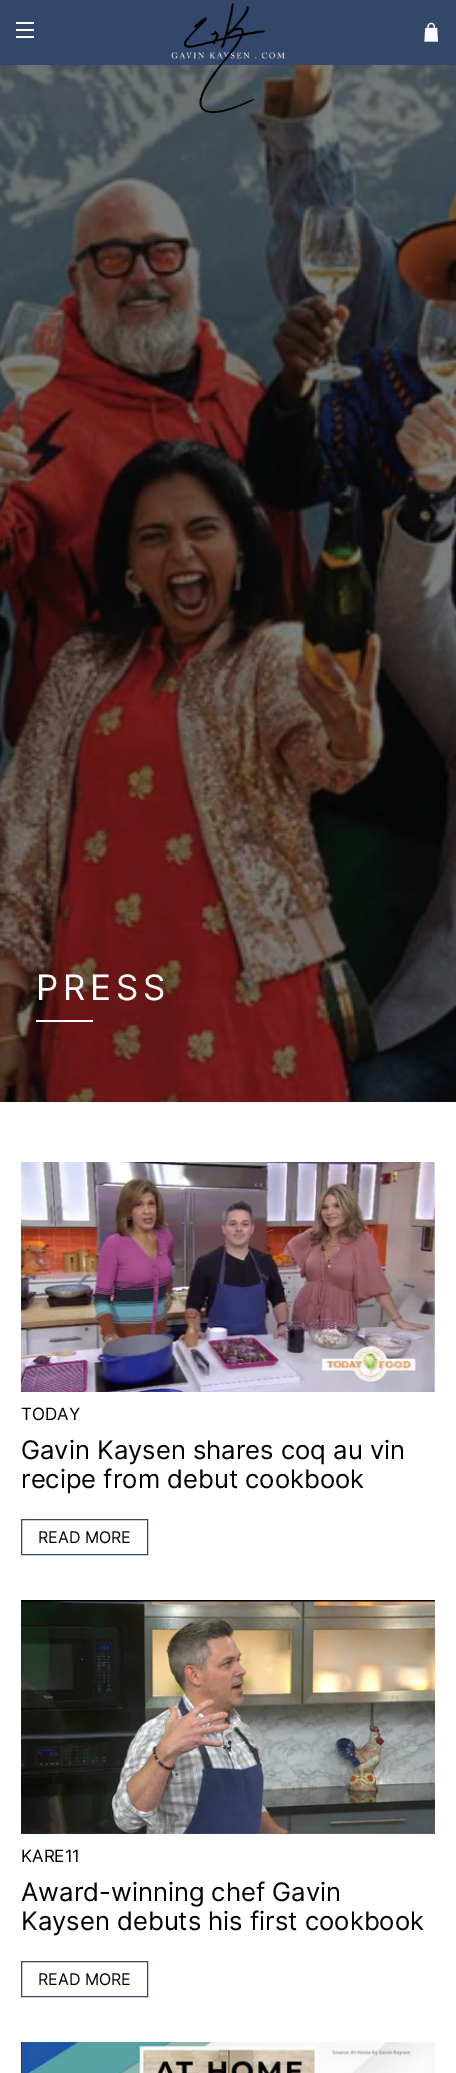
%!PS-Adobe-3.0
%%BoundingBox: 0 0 456 2073
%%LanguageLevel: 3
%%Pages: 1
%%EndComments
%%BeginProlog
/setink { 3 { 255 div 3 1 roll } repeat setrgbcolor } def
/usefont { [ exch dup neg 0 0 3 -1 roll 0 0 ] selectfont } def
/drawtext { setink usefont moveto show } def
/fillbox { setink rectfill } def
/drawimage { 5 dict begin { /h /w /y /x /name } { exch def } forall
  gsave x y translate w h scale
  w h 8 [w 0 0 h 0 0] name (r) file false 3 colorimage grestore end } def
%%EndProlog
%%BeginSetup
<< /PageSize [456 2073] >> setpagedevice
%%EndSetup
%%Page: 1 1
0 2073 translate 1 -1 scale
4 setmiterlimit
0 0 456 2073 255 255 255 fillbox
0 0 456 65 51 71 106 fillbox
16 22 18 2 255 255 255 fillbox
16 29 18 2 255 255 255 fillbox
16 36 18 2 255 255 255 fillbox
(assets/img3.rgb) 0 65 456 1037 drawimage
(assets/img1.rgb) 171 2 114 111 drawimage
(assets/img2.rgb) 424 22 14 20 drawimage
/Inter-Regular 35 usefont
36 1000 moveto 4.75 0 (PRESS) ashow
36 1020 57 2 255 255 255 fillbox
(assets/img4.rgb) 21 1162 414 230 drawimage
(TODAY) 21 1420 /Inter-Regular 17 0 0 0 drawtext
(Gavin Kaysen shares coq au vin) 21 1459 /Inter-Regular 25.6 0 0 0 drawtext
(recipe from debut cookbook) 21 1488 /Inter-Regular 25.6 0 0 0 drawtext
51 71 106 setink
21.5 1519.5 126 35 rectstroke
(READ MORE) 38 1543 /Inter-Regular 16 0 0 0 drawtext
(assets/img5.rgb) 21 1600 414 234 drawimage
(KARE11) 21 1862 /Inter-Regular 17 0 0 0 drawtext
(Award-winning chef Gavin) 21 1901 /Inter-Regular 25.6 0 0 0 drawtext
(Kaysen debuts his first cookbook) 21 1930 /Inter-Regular 25.6 0 0 0 drawtext
51 71 106 setink
21.5 1961.5 126 35 rectstroke
(READ MORE) 38 1985 /Inter-Regular 16 0 0 0 drawtext
(assets/img6.rgb) 21 2042 414 31 drawimage
showpage
%%EOF
